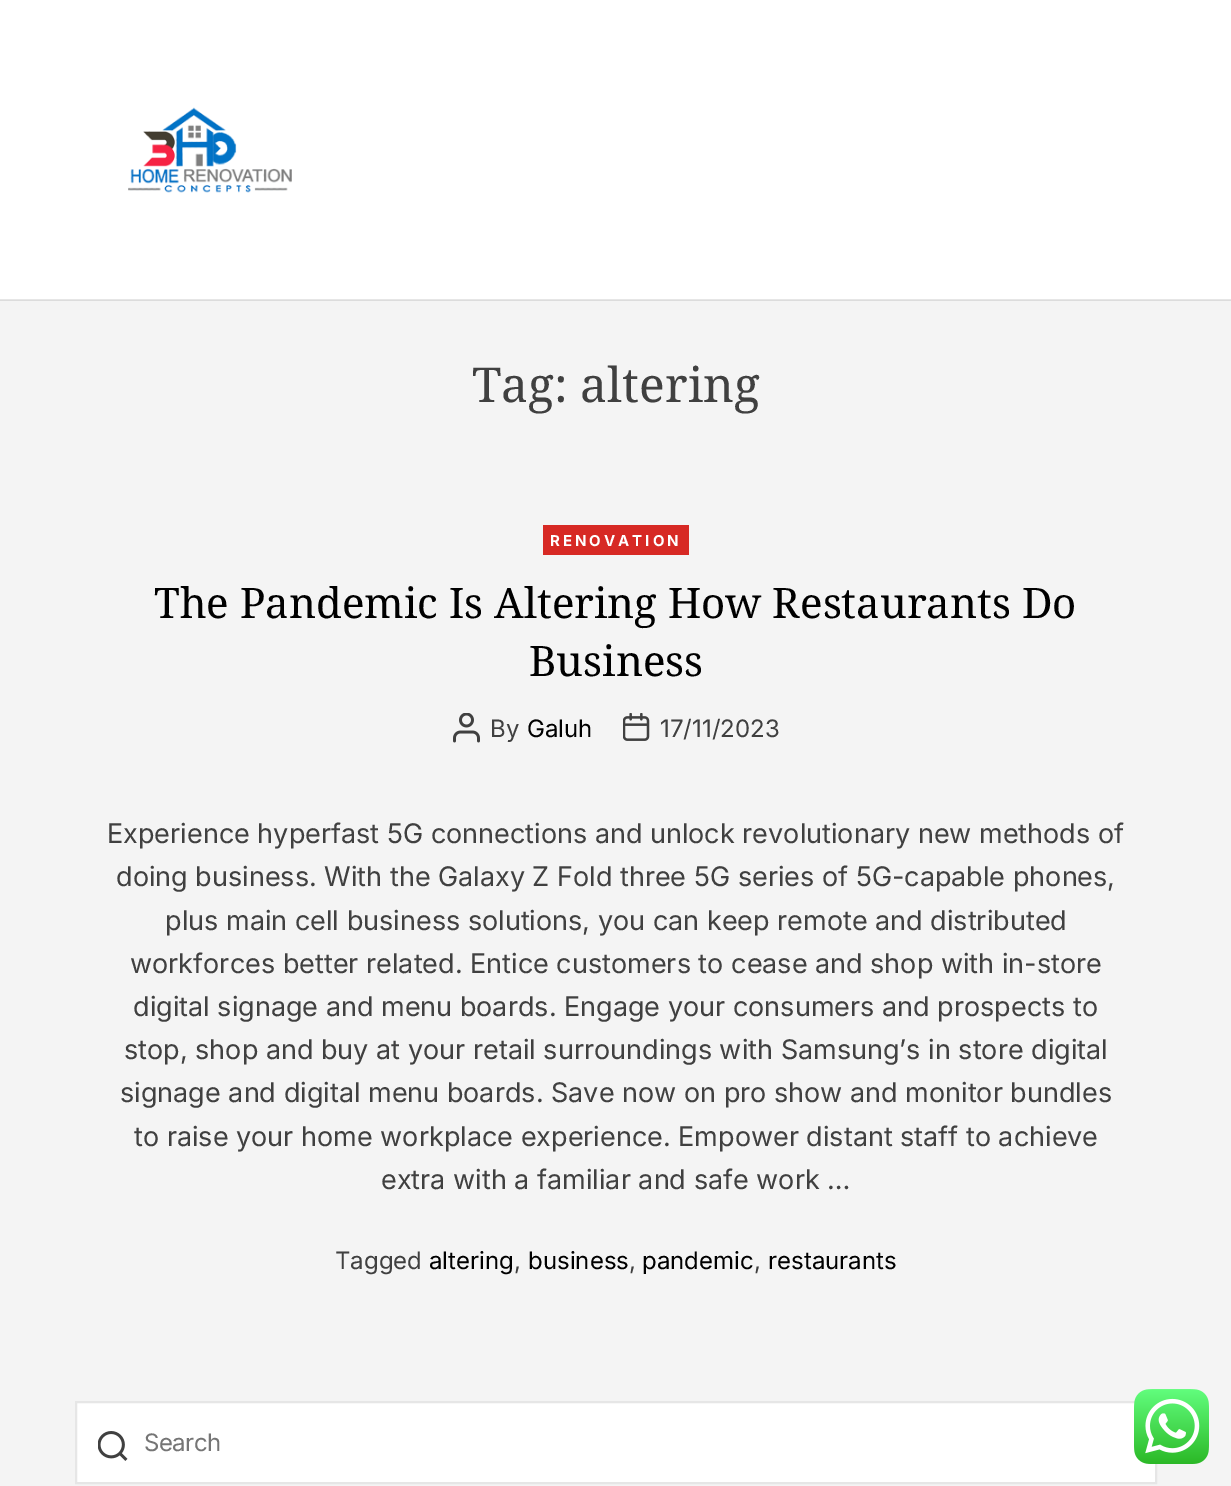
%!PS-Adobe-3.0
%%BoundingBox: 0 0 1231 1486
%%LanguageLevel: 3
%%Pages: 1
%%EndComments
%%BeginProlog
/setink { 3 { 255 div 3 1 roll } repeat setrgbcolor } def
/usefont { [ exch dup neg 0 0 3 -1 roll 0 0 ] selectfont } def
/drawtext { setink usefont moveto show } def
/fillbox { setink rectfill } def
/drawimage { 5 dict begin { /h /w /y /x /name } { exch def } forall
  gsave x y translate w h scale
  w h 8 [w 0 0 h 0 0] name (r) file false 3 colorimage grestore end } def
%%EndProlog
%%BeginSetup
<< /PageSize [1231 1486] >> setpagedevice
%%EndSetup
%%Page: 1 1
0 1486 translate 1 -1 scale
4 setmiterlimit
0 0 1231 1486 244 244 244 fillbox
0 300 1231 1 220 220 220 fillbox
0 0 1231 299 255 255 255 fillbox
0 299 1231 1 230 230 230 fillbox
(assets/img1.rgb) 128 107 164 86 drawimage
(Tag: altering) 472 402 /NotoSerif-Regular 48 64 64 64 drawtext
543 525 146 30 215 41 36 fillbox
/Inter-Bold 15 usefont
255 255 255 setink
550 546 moveto 3 0 (RENOVATION) ashow
(The Pandemic Is Altering How Restaurants Do) 154 618 /NotoSerif-Regular 42 0 0 0 drawtext
(Business) 529 676 /NotoSerif-Regular 42 0 0 0 drawtext
(assets/img2.rgb) 453 713 27 30 drawimage
(By) 490 737 /Inter-Regular 24 64 64 64 drawtext
(Galuh) 527 737 /Inter-Regular 24 0 0 0 drawtext
(assets/img3.rgb) 623 713 27 28 drawimage
(17/11/2023) 660 737 /Inter-Regular 24 64 64 64 drawtext
(Experience hyperfast 5G connections and unlock revolutionary new methods of) 107 843 /Inter-Regular 27 64 64 64 drawtext
(doing business. With the Galaxy Z Fold three 5G series of 5G-capable phones,) 116 886 /Inter-Regular 27 64 64 64 drawtext
(plus main cell business solutions, you can keep remote and distributed) 165 930 /Inter-Regular 27 64 64 64 drawtext
(workforces better related. Entice customers to cease and shop with in-store) 130 973 /Inter-Regular 27 64 64 64 drawtext
(digital signage and menu boards. Engage your consumers and prospects to) 133 1016 /Inter-Regular 27 64 64 64 drawtext
(stop, shop and buy at your retail surroundings with Samsung’s in store digital) 124 1059 /Inter-Regular 27 64 64 64 drawtext
(signage and digital menu boards. Save now on pro show and monitor bundles) 120 1102 /Inter-Regular 27 64 64 64 drawtext
(to raise your home workplace experience. Empower distant staff to achieve) 134 1146 /Inter-Regular 27 64 64 64 drawtext
(extra with a familiar and safe work …) 381 1189 /Inter-Regular 27 64 64 64 drawtext
(Tagged) 335 1269 /Inter-Regular 24 64 64 64 drawtext
(altering) 429 1269 /Inter-Regular 24 0 0 0 drawtext
(,) 514 1269 /Inter-Regular 24 64 64 64 drawtext
(business) 528 1269 /Inter-Regular 24 0 0 0 drawtext
(,) 629 1269 /Inter-Regular 24 64 64 64 drawtext
(pandemic) 642 1269 /Inter-Regular 24 0 0 0 drawtext
(,) 754 1269 /Inter-Regular 24 64 64 64 drawtext
(restaurants) 768 1269 /Inter-Regular 24 0 0 0 drawtext
255 255 255 setink
76 1402 moveto 1156 1402 lineto 1156 1483 lineto 76 1483 lineto closepath gsave fill grestore
230 230 230 setink
2 setlinewidth
stroke
(assets/img4.rgb) 98 1431 30 30 drawimage
117 117 117 setink
144 1451 moveto -0.5 0 (Search) ashow
(assets/img5.rgb) 1134 1389 75 75 drawimage
showpage
%%EOF
